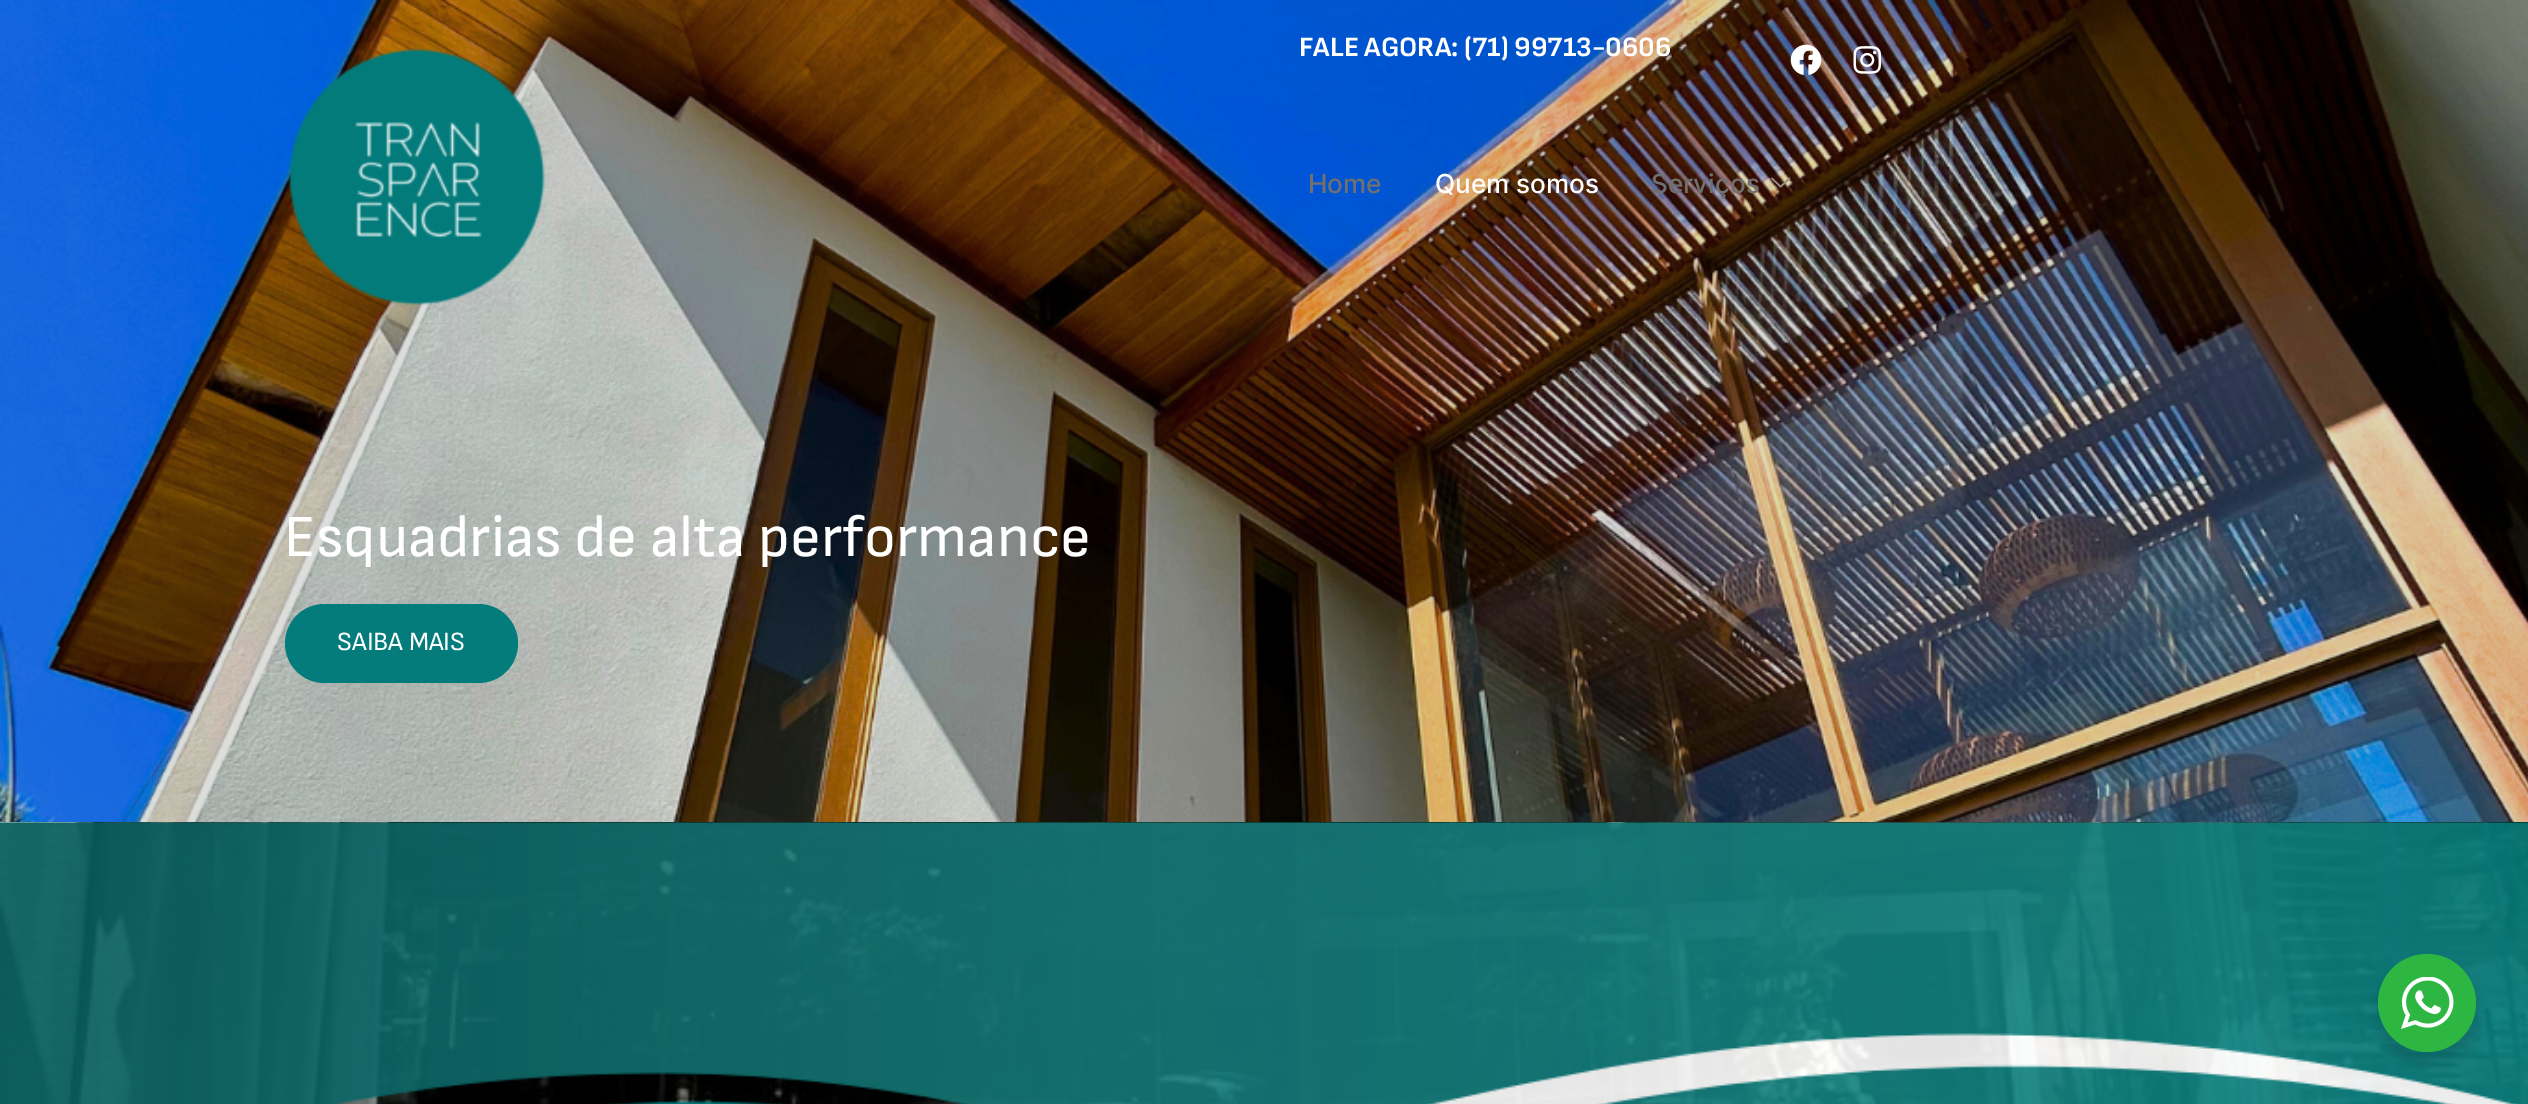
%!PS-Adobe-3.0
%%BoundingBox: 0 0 2528 1104
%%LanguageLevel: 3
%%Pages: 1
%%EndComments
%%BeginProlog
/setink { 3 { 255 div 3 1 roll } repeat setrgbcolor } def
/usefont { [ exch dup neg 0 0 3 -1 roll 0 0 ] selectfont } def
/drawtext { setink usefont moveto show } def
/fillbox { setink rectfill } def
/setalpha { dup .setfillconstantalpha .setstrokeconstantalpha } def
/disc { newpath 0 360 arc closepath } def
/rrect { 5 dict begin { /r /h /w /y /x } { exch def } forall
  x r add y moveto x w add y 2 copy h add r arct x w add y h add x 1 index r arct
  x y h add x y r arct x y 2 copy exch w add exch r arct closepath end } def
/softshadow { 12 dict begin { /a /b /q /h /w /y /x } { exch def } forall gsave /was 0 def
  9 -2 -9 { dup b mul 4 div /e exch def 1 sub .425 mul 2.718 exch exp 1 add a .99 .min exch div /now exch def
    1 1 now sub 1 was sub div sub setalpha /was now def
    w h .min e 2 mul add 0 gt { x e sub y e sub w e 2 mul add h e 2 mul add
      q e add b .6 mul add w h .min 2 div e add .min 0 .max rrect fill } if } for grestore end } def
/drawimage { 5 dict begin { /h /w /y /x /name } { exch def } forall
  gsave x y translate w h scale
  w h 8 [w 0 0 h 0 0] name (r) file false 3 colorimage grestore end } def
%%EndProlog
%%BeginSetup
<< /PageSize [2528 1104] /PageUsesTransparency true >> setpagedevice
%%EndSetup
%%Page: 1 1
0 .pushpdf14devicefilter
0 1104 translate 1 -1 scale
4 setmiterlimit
0 0 2528 1104 255 255 255 fillbox
(assets/img1.rgb) 0 0 2528 822 drawimage
(FALE AGORA: \(71\) 99713-0606) 1299 56 /SofiaSans-Bold 28 255 255 255 drawtext
(assets/img2.rgb) 1790 44 32 31 drawimage
(assets/img3.rgb) 1853 46 29 28 drawimage
(Home) 1308 193 /Inter-Medium 26.25 112 112 112 drawtext
(Quem somos) 1435 193 /Inter-Medium 26.25 255 255 255 drawtext
(Serviços) 1651 193 /Inter-Medium 26.25 112 112 112 drawtext
(assets/img4.rgb) 1771 177 20 11 drawimage
(assets/img5.rgb) 288 48 257 257 drawimage
(Esquadrias de alta performance) 284 556 /SofiaSans-Regular 59.5 255 255 255 drawtext
4 124 124 setink
285 604 233 79 39.5 rrect fill
(SAIBA MAIS) 337 650 /SofiaSans-Regular 26.25 255 255 255 drawtext
(assets/img6.rgb) 0 822 2528 282 drawimage
(assets/img7.rgb) 0 822 2528 282 drawimage
0 0 0 setink
2375 961 105 105 52.5 7 0.14 softshadow
45 183 66 setink
2427 1003 49 disc fill
(assets/img8.rgb) 2401 977 53 52 drawimage
.poppdf14devicefilter showpage
%%EOF
